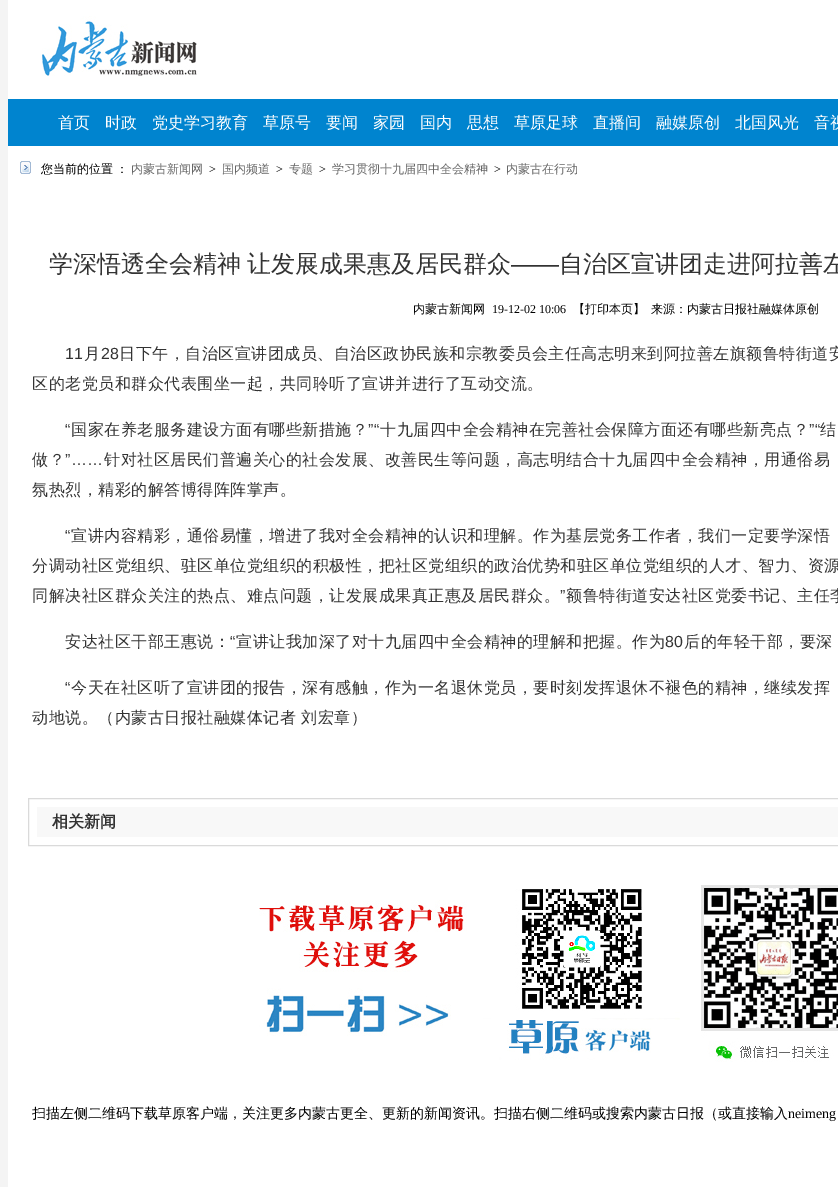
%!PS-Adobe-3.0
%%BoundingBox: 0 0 838 1187
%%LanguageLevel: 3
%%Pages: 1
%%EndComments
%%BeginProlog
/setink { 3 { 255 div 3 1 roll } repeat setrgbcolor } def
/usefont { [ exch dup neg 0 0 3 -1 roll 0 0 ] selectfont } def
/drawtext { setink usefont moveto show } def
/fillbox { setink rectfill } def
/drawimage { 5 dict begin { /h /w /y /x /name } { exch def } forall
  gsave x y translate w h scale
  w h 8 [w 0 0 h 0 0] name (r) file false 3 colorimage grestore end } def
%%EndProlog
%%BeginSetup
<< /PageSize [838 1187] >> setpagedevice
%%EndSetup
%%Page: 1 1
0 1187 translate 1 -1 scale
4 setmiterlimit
0 0 838 1187 244 244 244 fillbox
8 0 830 99 255 255 255 fillbox
(assets/img1.rgb) 42 16 155 60 drawimage
8 99 830 47 0 132 207 fillbox
(首页) 58 128 /WenQuanYiZenHei-Medium 16 255 255 255 drawtext
(时政) 105 128 /WenQuanYiZenHei-Medium 16 255 255 255 drawtext
(党史学习教育) 152 128 /WenQuanYiZenHei-Medium 16 255 255 255 drawtext
(草原号) 263 128 /WenQuanYiZenHei-Medium 16 255 255 255 drawtext
(要闻) 326 128 /WenQuanYiZenHei-Medium 16 255 255 255 drawtext
(家园) 373 128 /WenQuanYiZenHei-Medium 16 255 255 255 drawtext
(国内) 420 128 /WenQuanYiZenHei-Medium 16 255 255 255 drawtext
(思想) 467 128 /WenQuanYiZenHei-Medium 16 255 255 255 drawtext
(草原足球) 514 128 /WenQuanYiZenHei-Medium 16 255 255 255 drawtext
(直播间) 593 128 /WenQuanYiZenHei-Medium 16 255 255 255 drawtext
(融媒原创) 656 128 /WenQuanYiZenHei-Medium 16 255 255 255 drawtext
(北国风光) 735 128 /WenQuanYiZenHei-Medium 16 255 255 255 drawtext
(音视) 814 128 /WenQuanYiZenHei-Medium 16 255 255 255 drawtext
8 146 830 1041 255 255 255 fillbox
(assets/img2.rgb) 20 161 11 13 drawimage
/WenQuanYiZenHei-Medium 12 usefont
0 0 0 setink
41 173 moveto -1 0 32 (您当前的位置 ：) widthshow
(内蒙古新闻网) 131 173 /WenQuanYiZenHei-Medium 12 102 102 102 drawtext
(>) 209 173 /LiberationSerif-Regular 12 0 0 0 drawtext
(国内频道) 222 173 /WenQuanYiZenHei-Medium 12 102 102 102 drawtext
(>) 276 173 /LiberationSerif-Regular 12 0 0 0 drawtext
(专题) 289 173 /WenQuanYiZenHei-Medium 12 102 102 102 drawtext
(>) 319 173 /LiberationSerif-Regular 12 0 0 0 drawtext
(学习贯彻十九届四中全会精神) 332 173 /WenQuanYiZenHei-Medium 12 102 102 102 drawtext
(>) 494 173 /LiberationSerif-Regular 12 0 0 0 drawtext
(内蒙古在行动) 506 173 /WenQuanYiZenHei-Medium 12 102 102 102 drawtext
/WenQuanYiZenHei-Medium 24 usefont
51 51 51 setink
49 272 moveto -1 0 32 (学深悟透全会精神 让发展成果惠及居民群众) widthshow
(——) 511 272 /LiberationSans-Regular 24 51 51 51 drawtext
(自治区宣讲团走进阿拉善左) 559 272 /WenQuanYiZenHei-Medium 24 51 51 51 drawtext
(内蒙古新闻网) 413 313 /WenQuanYiZenHei-Medium 12 0 0 0 drawtext
(19-12-02 10:06) 492 313 /LiberationSerif-Regular 12 0 0 0 drawtext
(【打印本页】) 573 313 /WenQuanYiZenHei-Medium 12 0 0 0 drawtext
(来源：内蒙古日报社融媒体原创) 651 313 /WenQuanYiZenHei-Medium 12 0 0 0 drawtext
/LiberationSans-Regular 16 usefont
51 51 51 setink
65 359 moveto 0.5 0 (11) ashow
/WenQuanYiZenHei-Medium 16 usefont
84 359 moveto 0.5 0 (月) ashow
/LiberationSans-Regular 16 usefont
101 359 moveto 0.5 0 (28) ashow
/WenQuanYiZenHei-Medium 16 usefont
119 359 moveto 0.5 0 (日下午，自治区宣讲团成员、自治区政协民族和宗教委员会主任高志明来到阿拉善左旗额鲁特街道安) ashow
32 389 moveto 0.5 0 (区的老党员和群众代表围坐一起，共同聆听了宣讲并进行了互动交流。) ashow
/LiberationSans-Regular 16 usefont
65 435 moveto 0.5 0 (“) ashow
/WenQuanYiZenHei-Medium 16 usefont
71 435 moveto 0.5 0 (国家在养老服务建设方面有哪些新措施？) ashow
/LiberationSans-Regular 16 usefont
368 435 moveto 0.5 0 (”“) ashow
/WenQuanYiZenHei-Medium 16 usefont
380 435 moveto 0.5 0 (十九届四中全会精神在完善社会保障方面还有哪些新亮点？) ashow
/LiberationSans-Regular 16 usefont
809 435 moveto 0.5 0 (”“) ashow
/WenQuanYiZenHei-Medium 16 usefont
820 435 moveto 0.5 0 (结) ashow
32 465 moveto 0.5 0 (做？) ashow
/LiberationSans-Regular 16 usefont
65 465 moveto 0.5 0 (”……) ashow
/WenQuanYiZenHei-Medium 16 usefont
104 465 moveto 0.5 0 (针对社区居民们普遍关心的社会发展、改善民生等问题，高志明结合十九届四中全会精神，用通俗易) ashow
32 495 moveto 0.5 0 (氛热烈，精彩的解答博得阵阵掌声。) ashow
/LiberationSans-Regular 16 usefont
65 541 moveto 0.5 0 (“) ashow
/WenQuanYiZenHei-Medium 16 usefont
71 541 moveto 0.5 0 (宣讲内容精彩，通俗易懂，增进了我对全会精神的认识和理解。作为基层党务工作者，我们一定要学深悟) ashow
32 571 moveto 0.5 0 (分调动社区党组织、驻区单位党组织的积极性，把社区党组织的政治优势和驻区单位党组织的人才、智力、资源) ashow
32 601 moveto 0.5 0 (同解决社区群众关注的热点、难点问题，让发展成果真正惠及居民群众。) ashow
/LiberationSans-Regular 16 usefont
560 601 moveto 0.5 0 (”) ashow
/WenQuanYiZenHei-Medium 16 usefont
566 601 moveto 0.5 0 (额鲁特街道安达社区党委书记、主任李) ashow
65 647 moveto 0.5 0 (安达社区干部王惠说：) ashow
/LiberationSans-Regular 16 usefont
230 647 moveto 0.5 0 (“) ashow
/WenQuanYiZenHei-Medium 16 usefont
236 647 moveto 0.5 0 (宣讲让我加深了对十九届四中全会精神的理解和把握。作为) ashow
/LiberationSans-Regular 16 usefont
665 647 moveto 0.5 0 (80) ashow
/WenQuanYiZenHei-Medium 16 usefont
684 647 moveto 0.5 0 (后的年轻干部，要深) ashow
/LiberationSans-Regular 16 usefont
65 693 moveto 0.5 0 (“) ashow
/WenQuanYiZenHei-Medium 16 usefont
71 693 moveto 0.5 0 (今天在社区听了宣讲团的报告，深有感触，作为一名退休党员，要时刻发挥退休不褪色的精神，继续发挥) ashow
32 723 moveto 0.5 0 (动地说。（内蒙古日报社融媒体记者 刘宏章）) ashow
218 218 218 setink
28.5 798.5 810 47 rectstroke
37 807 801 30 248 248 248 fillbox
(相关新闻) 52 827 /WenQuanYiZenHei-Bold 16 51 51 51 drawtext
(assets/img3.rgb) 259 889 421 171 drawimage
(assets/img4.rgb) 701 885 137 177 drawimage
(扫描左侧二维码下载草原客户端，关注更多内蒙古更全、更新的新闻资讯。扫描右侧二维码或搜索内蒙古日报（或直接输入) 32 1118 /WenQuanYiZenHei-Medium 14 0 0 0 drawtext
(neimeng) 788 1118 /LiberationSerif-Regular 14 0 0 0 drawtext
showpage
%%EOF
